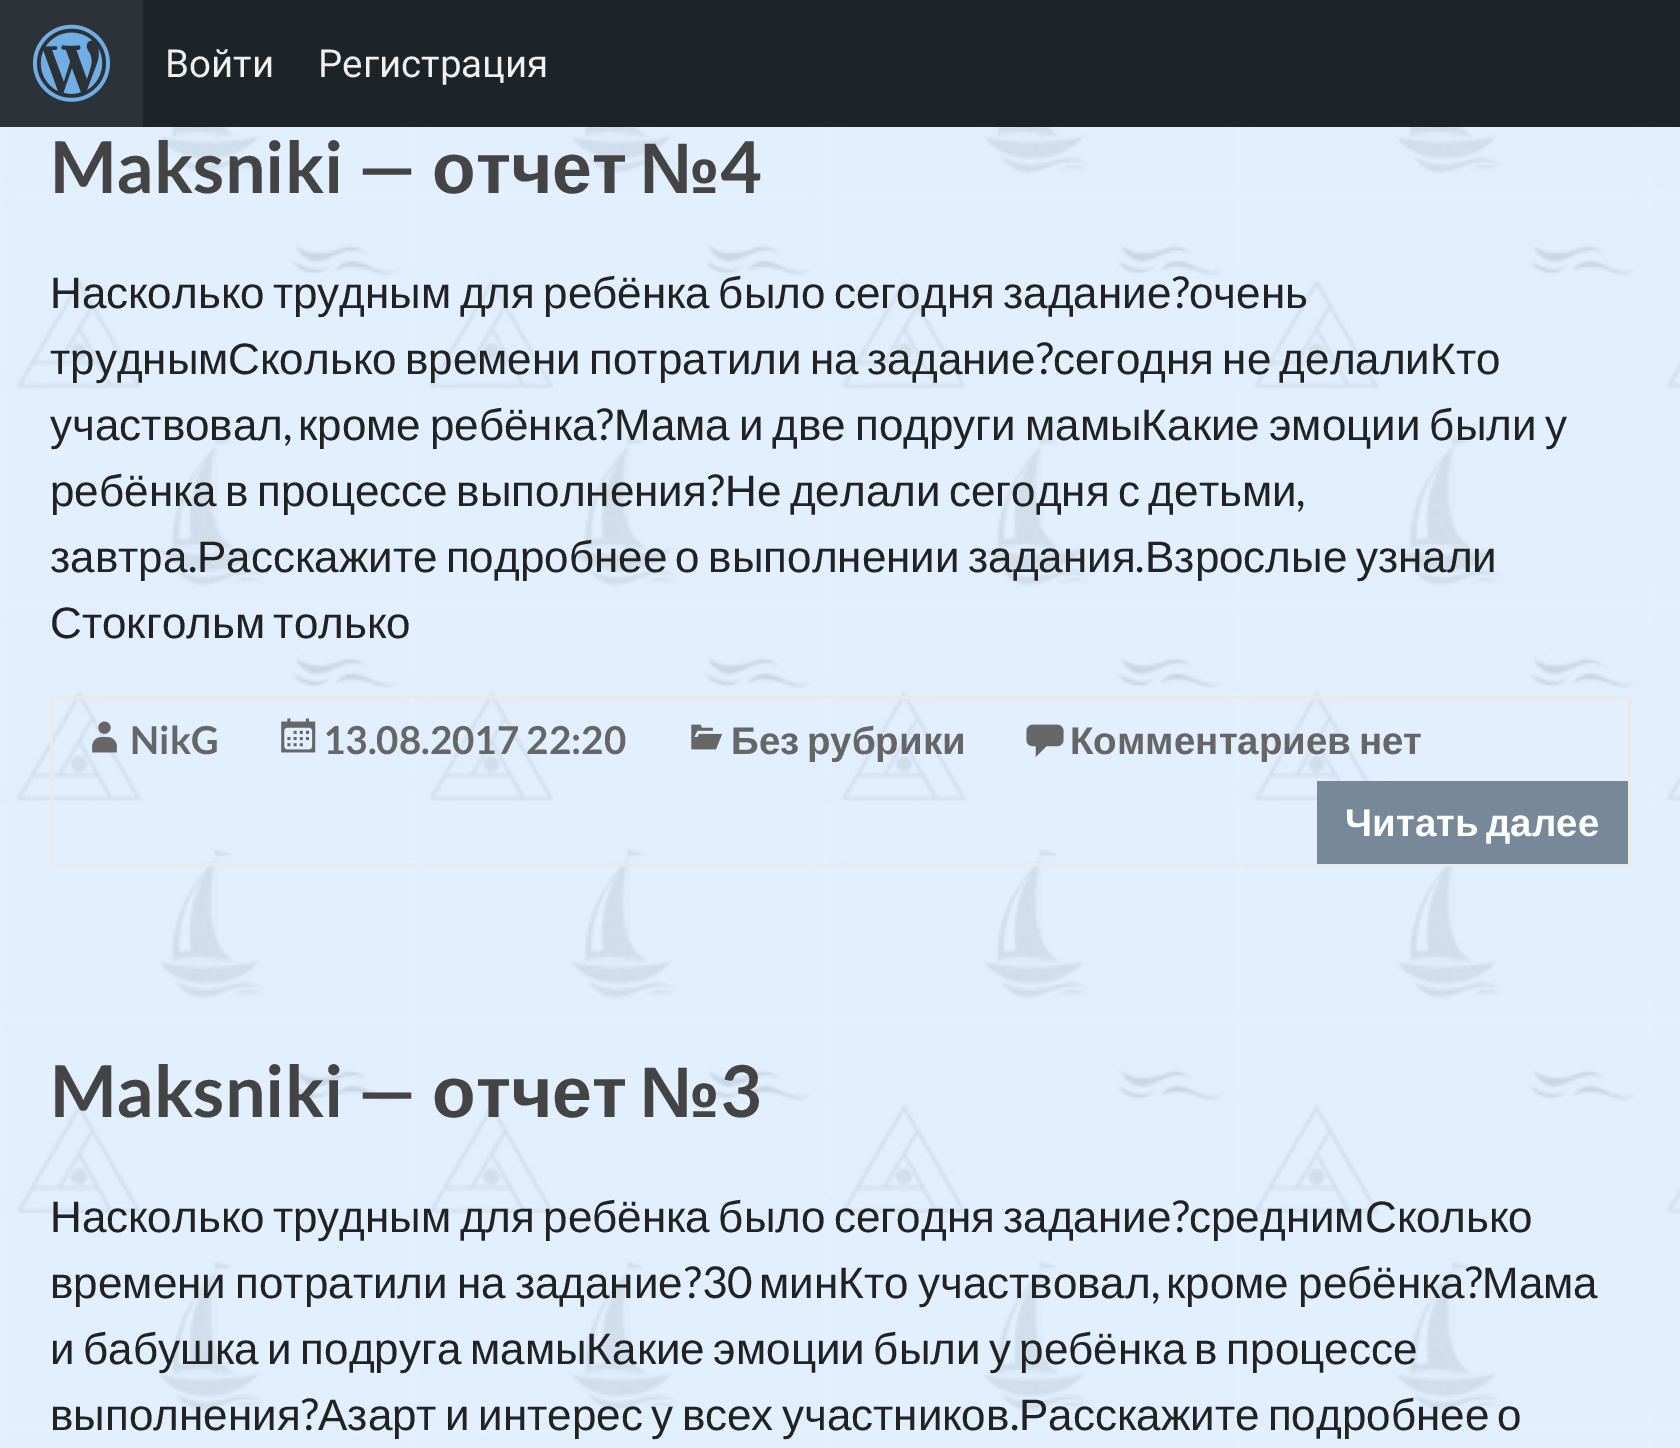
%!PS-Adobe-3.0
%%BoundingBox: 0 0 1680 1448
%%LanguageLevel: 3
%%Pages: 1
%%EndComments
%%BeginProlog
/setink { 3 { 255 div 3 1 roll } repeat setrgbcolor } def
/usefont { [ exch dup neg 0 0 3 -1 roll 0 0 ] selectfont } def
/drawtext { setink usefont moveto show } def
/fillbox { setink rectfill } def
/drawimage { 5 dict begin { /h /w /y /x /name } { exch def } forall
  gsave x y translate w h scale
  w h 8 [w 0 0 h 0 0] name (r) file false 3 colorimage grestore end } def
%%EndProlog
%%BeginSetup
<< /PageSize [1680 1448] >> setpagedevice
%%EndSetup
%%Page: 1 1
0 1448 translate 1 -1 scale
4 setmiterlimit
0 0 1680 1448 255 255 255 fillbox
(assets/img1.rgb) 0 127 1680 1321 drawimage
143 0 1537 127 29 35 39 fillbox
0 0 143 127 44 51 56 fillbox
(assets/img2.rgb) 33 24 77 78 drawimage
(Войти) 165 77 /Roboto-Regular 38.5 240 240 241 drawtext
(Регистрация) 318 77 /Roboto-Regular 38.5 240 240 241 drawtext
(Maksniki —) 50 193 /Lato-Bold 71.5 68 68 68 drawtext
(отчет) 432 193 /LiberationSans-Bold 71.5 68 68 68 drawtext
(№) 640 193 /LiberationSans-Bold 71.5 68 68 68 drawtext
(4) 720 193 /Lato-Bold 71.5 68 68 68 drawtext
/LiberationSans-Regular 44 usefont
34 34 34 setink
50 308 moveto -3.75 0 32 (Насколько трудным для ребёнка было сегодня задание) widthshow
(?) 1172 308 /Lato-Regular 44 34 34 34 drawtext
(очень) 1189 308 /LiberationSans-Regular 44 34 34 34 drawtext
50 374 moveto -3.75 0 32 (труднымСколько времени потратили на задание) widthshow
(?) 1036 374 /Lato-Regular 44 34 34 34 drawtext
/LiberationSans-Regular 44 usefont
1053 374 moveto -3.75 0 32 (сегодня не делалиКто) widthshow
(участвовал) 50 440 /LiberationSans-Regular 44 34 34 34 drawtext
(,) 283 440 /Lato-Regular 44 34 34 34 drawtext
/LiberationSans-Regular 44 usefont
298 440 moveto -3.25 0 32 (кроме ребёнка) widthshow
(?) 596 440 /Lato-Regular 44 34 34 34 drawtext
/LiberationSans-Regular 44 usefont
614 440 moveto -3.25 0 32 (Мама и две подруги мамыКакие эмоции были у) widthshow
50 506 moveto -3.75 0 32 (ребёнка в процессе выполнения) widthshow
(?) 707 506 /Lato-Regular 44 34 34 34 drawtext
/LiberationSans-Regular 44 usefont
725 506 moveto -3.75 0 32 (Не делали сегодня с детьми) widthshow
(,) 1296 506 /Lato-Regular 44 34 34 34 drawtext
(завтра) 50 572 /LiberationSans-Regular 44 34 34 34 drawtext
(.) 188 572 /Lato-Regular 44 34 34 34 drawtext
/LiberationSans-Regular 44 usefont
197 572 moveto -3.75 0 32 (Расскажите подробнее о выполнении задания) widthshow
(.) 1135 572 /Lato-Regular 44 34 34 34 drawtext
/LiberationSans-Regular 44 usefont
1145 572 moveto -3.75 0 32 (Взрослые узнали) widthshow
50 638 moveto -3.75 0 32 (Стокгольм только) widthshow
234 234 234 setink
3 setlinewidth
51.5 697.5 1578 167 rectstroke
(assets/img3.rgb) 92 721 25 32 drawimage
(NikG) 130 754 /Lato-Bold 38.5 102 102 102 drawtext
(assets/img4.rgb) 281 718 35 35 drawimage
(13.08.2017 22:20) 323 754 /Lato-Bold 38.5 102 102 102 drawtext
(assets/img5.rgb) 691 724 32 26 drawimage
/LiberationSans-Bold 38.5 usefont
731 754 moveto -3.25 0 32 (Без рубрики) widthshow
(assets/img6.rgb) 1026 724 38 33 drawimage
1070 754 moveto -3.25 0 32 (Комментариев нет) widthshow
1317 781 311 83 119 136 153 fillbox
255 255 255 setink
1345 836 moveto -3.25 0 32 (Читать далее) widthshow
(Maksniki —) 50 1117 /Lato-Bold 71.5 68 68 68 drawtext
(отчет) 432 1117 /LiberationSans-Bold 71.5 68 68 68 drawtext
(№) 640 1117 /LiberationSans-Bold 71.5 68 68 68 drawtext
(3) 720 1117 /Lato-Bold 71.5 68 68 68 drawtext
/LiberationSans-Regular 44 usefont
34 34 34 setink
50 1232 moveto -3.75 0 32 (Насколько трудным для ребёнка было сегодня задание) widthshow
(?) 1172 1232 /Lato-Regular 44 34 34 34 drawtext
(среднимСколько) 1189 1232 /LiberationSans-Regular 44 34 34 34 drawtext
50 1298 moveto -3 0 32 (времени потратили на задание) widthshow
(?30) 684 1298 /Lato-Regular 44 34 34 34 drawtext
/LiberationSans-Regular 44 usefont
759 1298 moveto -3 0 32 (минКто участвовал) widthshow
(,) 1151 1298 /Lato-Regular 44 34 34 34 drawtext
/LiberationSans-Regular 44 usefont
1166 1298 moveto -3 0 32 (кроме ребёнка) widthshow
(?) 1465 1298 /Lato-Regular 44 34 34 34 drawtext
(Мама) 1482 1298 /LiberationSans-Regular 44 34 34 34 drawtext
50 1364 moveto -3.75 0 32 (и бабушка и подруга мамыКакие эмоции были у ребёнка в процессе) widthshow
(выполнения) 50 1430 /LiberationSans-Regular 44 34 34 34 drawtext
(?) 301 1430 /Lato-Regular 44 34 34 34 drawtext
/LiberationSans-Regular 44 usefont
318 1430 moveto -3.75 0 32 (Азарт и интерес у всех участников) widthshow
(.) 1010 1430 /Lato-Regular 44 34 34 34 drawtext
/LiberationSans-Regular 44 usefont
1019 1430 moveto -3.75 0 32 (Расскажите подробнее о) widthshow
showpage
%%EOF
